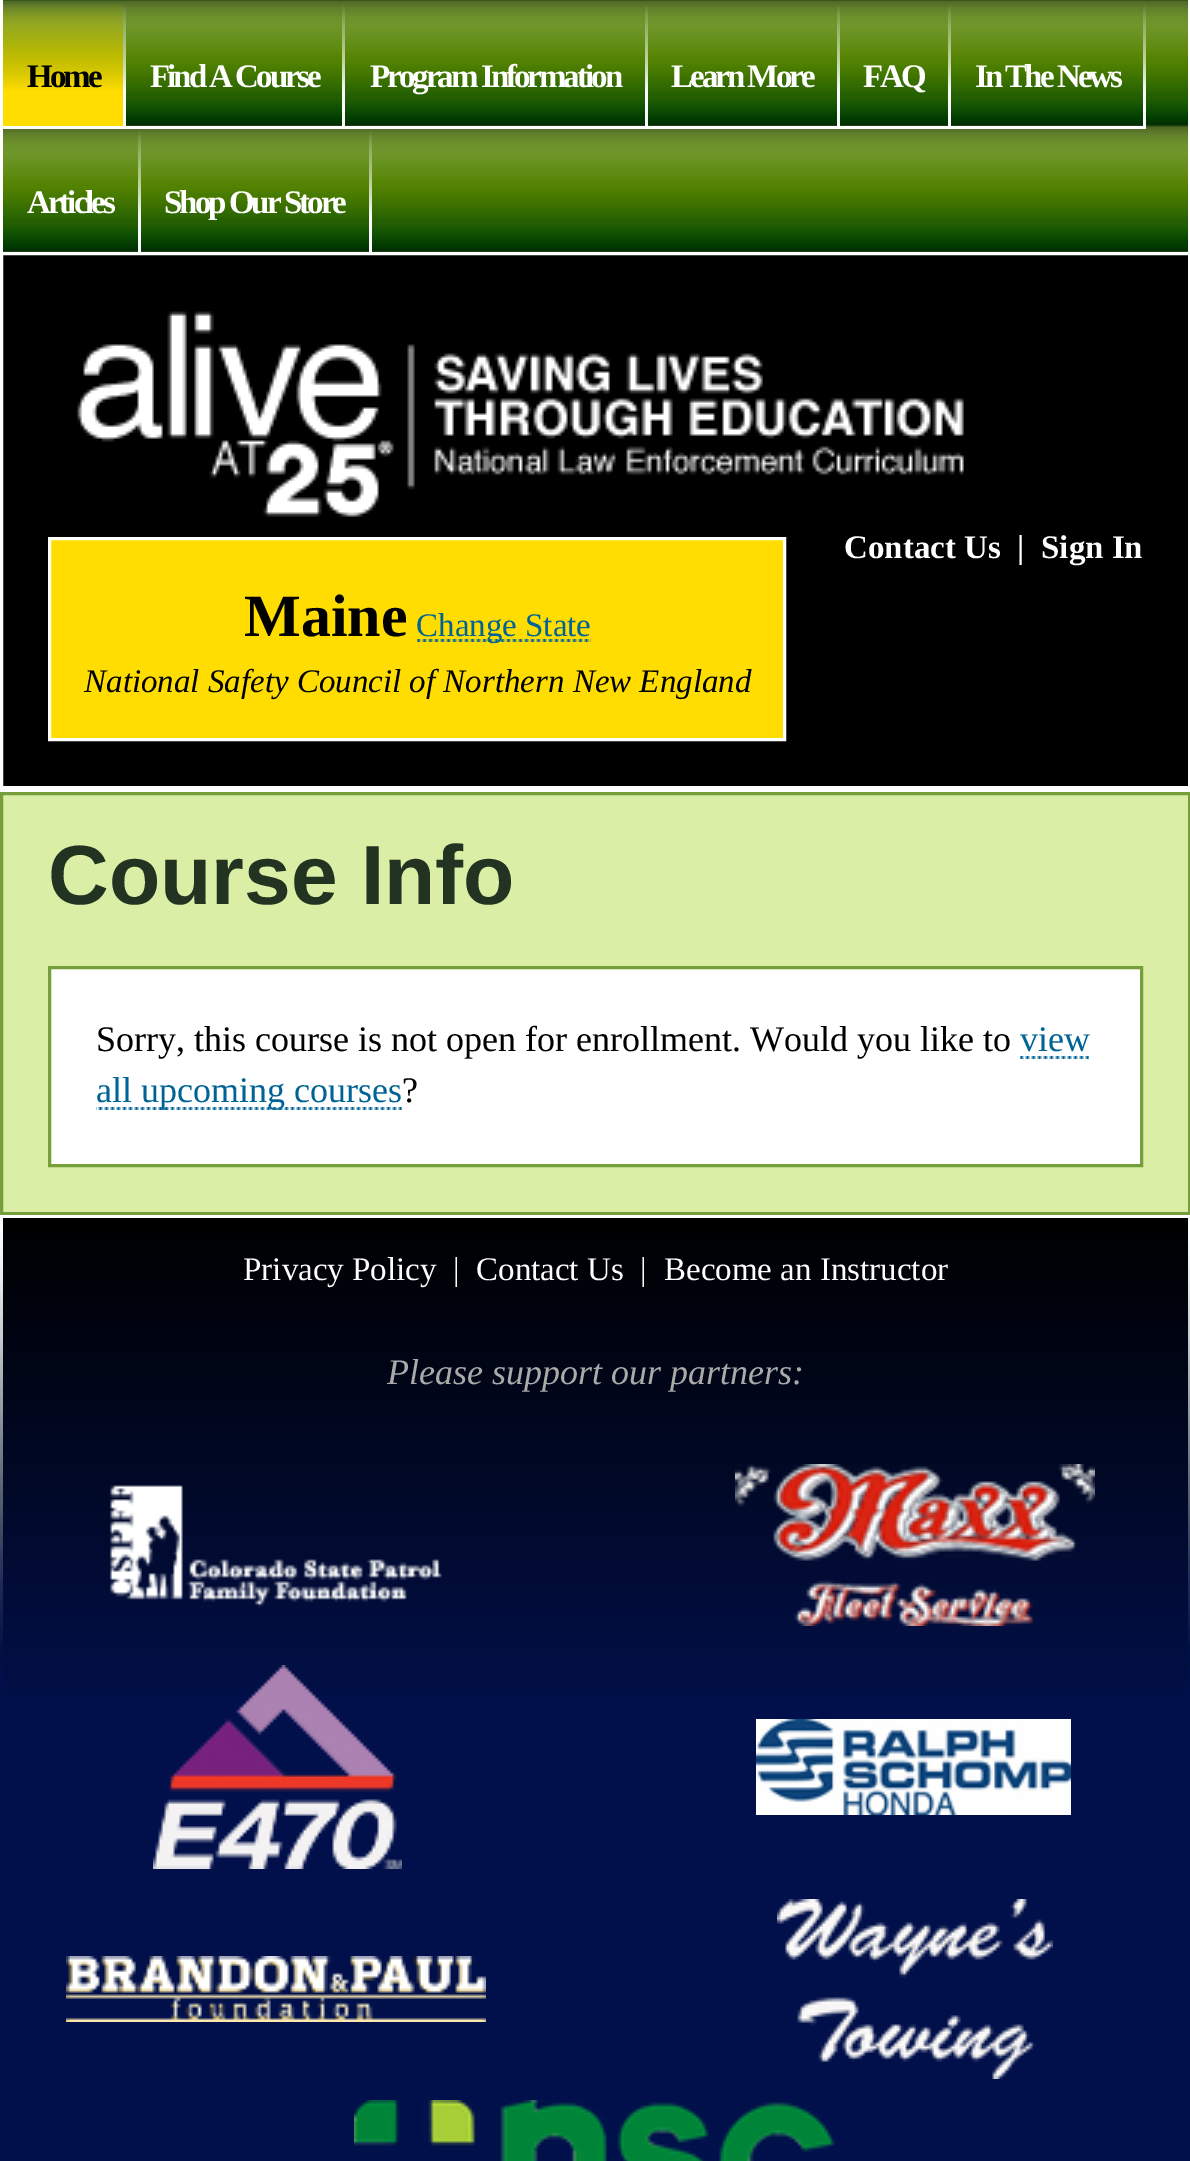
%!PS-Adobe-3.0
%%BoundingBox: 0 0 1190 2161
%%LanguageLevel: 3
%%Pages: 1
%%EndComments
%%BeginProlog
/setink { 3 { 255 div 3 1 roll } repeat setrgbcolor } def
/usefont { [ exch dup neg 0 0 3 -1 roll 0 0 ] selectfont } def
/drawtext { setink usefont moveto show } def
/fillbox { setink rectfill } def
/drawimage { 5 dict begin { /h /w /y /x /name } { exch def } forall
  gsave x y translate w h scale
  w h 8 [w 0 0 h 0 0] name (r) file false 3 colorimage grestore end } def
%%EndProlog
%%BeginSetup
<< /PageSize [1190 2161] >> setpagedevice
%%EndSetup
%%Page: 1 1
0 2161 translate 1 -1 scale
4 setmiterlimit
0 0 1190 2161 1 16 75 fillbox
3 0 1185 252 0 46 0 fillbox
(assets/img1.rgb) 3 0 1185 252 drawimage
1188 0 2 252 255 255 255 fillbox
0 0 3 252 255 255 255 fillbox
(assets/img2.rgb) 123 5 3 121 drawimage
3 126 1143 3 255 255 255 fillbox
(assets/img3.rgb) 3 4 120 122 drawimage
/LiberationSerif-Bold 33 usefont
0 0 0 setink
27 87 moveto -3 0 (Home) ashow
(assets/img2.rgb) 342 5 3 121 drawimage
255 255 255 setink
150 87 moveto -3 0 (Find A Course) ashow
(assets/img2.rgb) 645 5 3 121 drawimage
370 87 moveto -3 0 (Program Information) ashow
(assets/img2.rgb) 837 5 3 121 drawimage
671 87 moveto -3 0 (Learn More) ashow
(assets/img2.rgb) 948 5 3 121 drawimage
863 87 moveto -3 0 (FAQ) ashow
(assets/img2.rgb) 1143 5 3 121 drawimage
975 87 moveto -3 0 (In The News) ashow
(assets/img2.rgb) 138 131 3 121 drawimage
27 213 moveto -3 0 (Articles) ashow
(assets/img2.rgb) 369 131 3 121 drawimage
164 213 moveto -3 0 (Shop Our Store) ashow
0 0 0 setink
1.5 253.5 moveto 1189.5 253.5 lineto 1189.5 787.5 lineto 1.5 787.5 lineto closepath gsave fill grestore
255 255 255 setink
3 setlinewidth
stroke
(assets/img4.rgb) 77 311 887 206 drawimage
(Contact Us) 844 558 /LiberationSerif-Bold 33 255 255 255 drawtext
(|) 1017 558 /LiberationSerif-Bold 33 255 255 255 drawtext
(Sign In) 1041 558 /LiberationSerif-Bold 33 255 255 255 drawtext
255 221 0 setink
49.5 538.5 moveto 784.5 538.5 lineto 784.5 739.5 lineto 49.5 739.5 lineto closepath gsave fill grestore
255 255 255 setink
stroke
(Maine) 244 636 /LiberationSerif-Bold 60 0 0 0 drawtext
(assets/img5.rgb) 417 639 174 3 drawimage
(Change State) 416 636 /LiberationSerif-Regular 33 0 99 149 drawtext
(National Safety Council of Northern New England) 84 692 /LiberationSerif-Italic 33 0 0 0 drawtext
0 789 1190 3 255 255 255 fillbox
218 238 166 setink
1.5 793.5 moveto 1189.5 793.5 lineto 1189.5 1213.5 lineto 1.5 1213.5 lineto closepath gsave fill grestore
118 158 59 setink
stroke
(Course Info) 48 904 /LiberationSans-Bold 84 34 51 34 drawtext
255 255 255 setink
49.5 967.5 moveto 1141.5 967.5 lineto 1141.5 1165.5 lineto 49.5 1165.5 lineto closepath gsave fill grestore
118 158 59 setink
stroke
(Sorry, this course is not open for enrollment. Would you like to) 96 1051 /LiberationSerif-Regular 36 0 0 0 drawtext
(view) 1020 1051 /LiberationSerif-Regular 36 0 99 149 drawtext
(assets/img6.rgb) 96 1056 993 54 drawimage
(all upcoming courses) 96 1102 /LiberationSerif-Regular 36 0 99 149 drawtext
(?) 402 1102 /LiberationSerif-Regular 36 0 0 0 drawtext
(assets/img7.rgb) 3 1218 1185 479 drawimage
0 1215 1190 3 255 255 255 fillbox
(assets/img8.rgb) 0 1218 3 448 drawimage
(Privacy Policy) 243 1280 /LiberationSerif-Regular 33 255 255 255 drawtext
(|) 453 1280 /LiberationSerif-Regular 33 255 255 255 drawtext
(Contact Us) 476 1280 /LiberationSerif-Regular 33 255 255 255 drawtext
(|) 640 1280 /LiberationSerif-Regular 33 255 255 255 drawtext
(Become an Instructor) 664 1280 /LiberationSerif-Regular 33 255 255 255 drawtext
(Please support our partners:) 387 1384 /LiberationSerif-Italic 36 170 170 170 drawtext
(assets/img9.rgb) 110 1485 332 123 drawimage
(assets/img10.rgb) 735 1464 360 162 drawimage
(assets/img11.rgb) 153 1665 249 204 drawimage
(assets/img12.rgb) 756 1719 315 96 drawimage
(assets/img13.rgb) 66 1956 420 66 drawimage
(assets/img14.rgb) 777 1899 276 180 drawimage
(assets/img15.rgb) 354 2100 481 61 drawimage
(assets/img16.rgb) 1188 1218 2 448 drawimage
showpage
%%EOF
